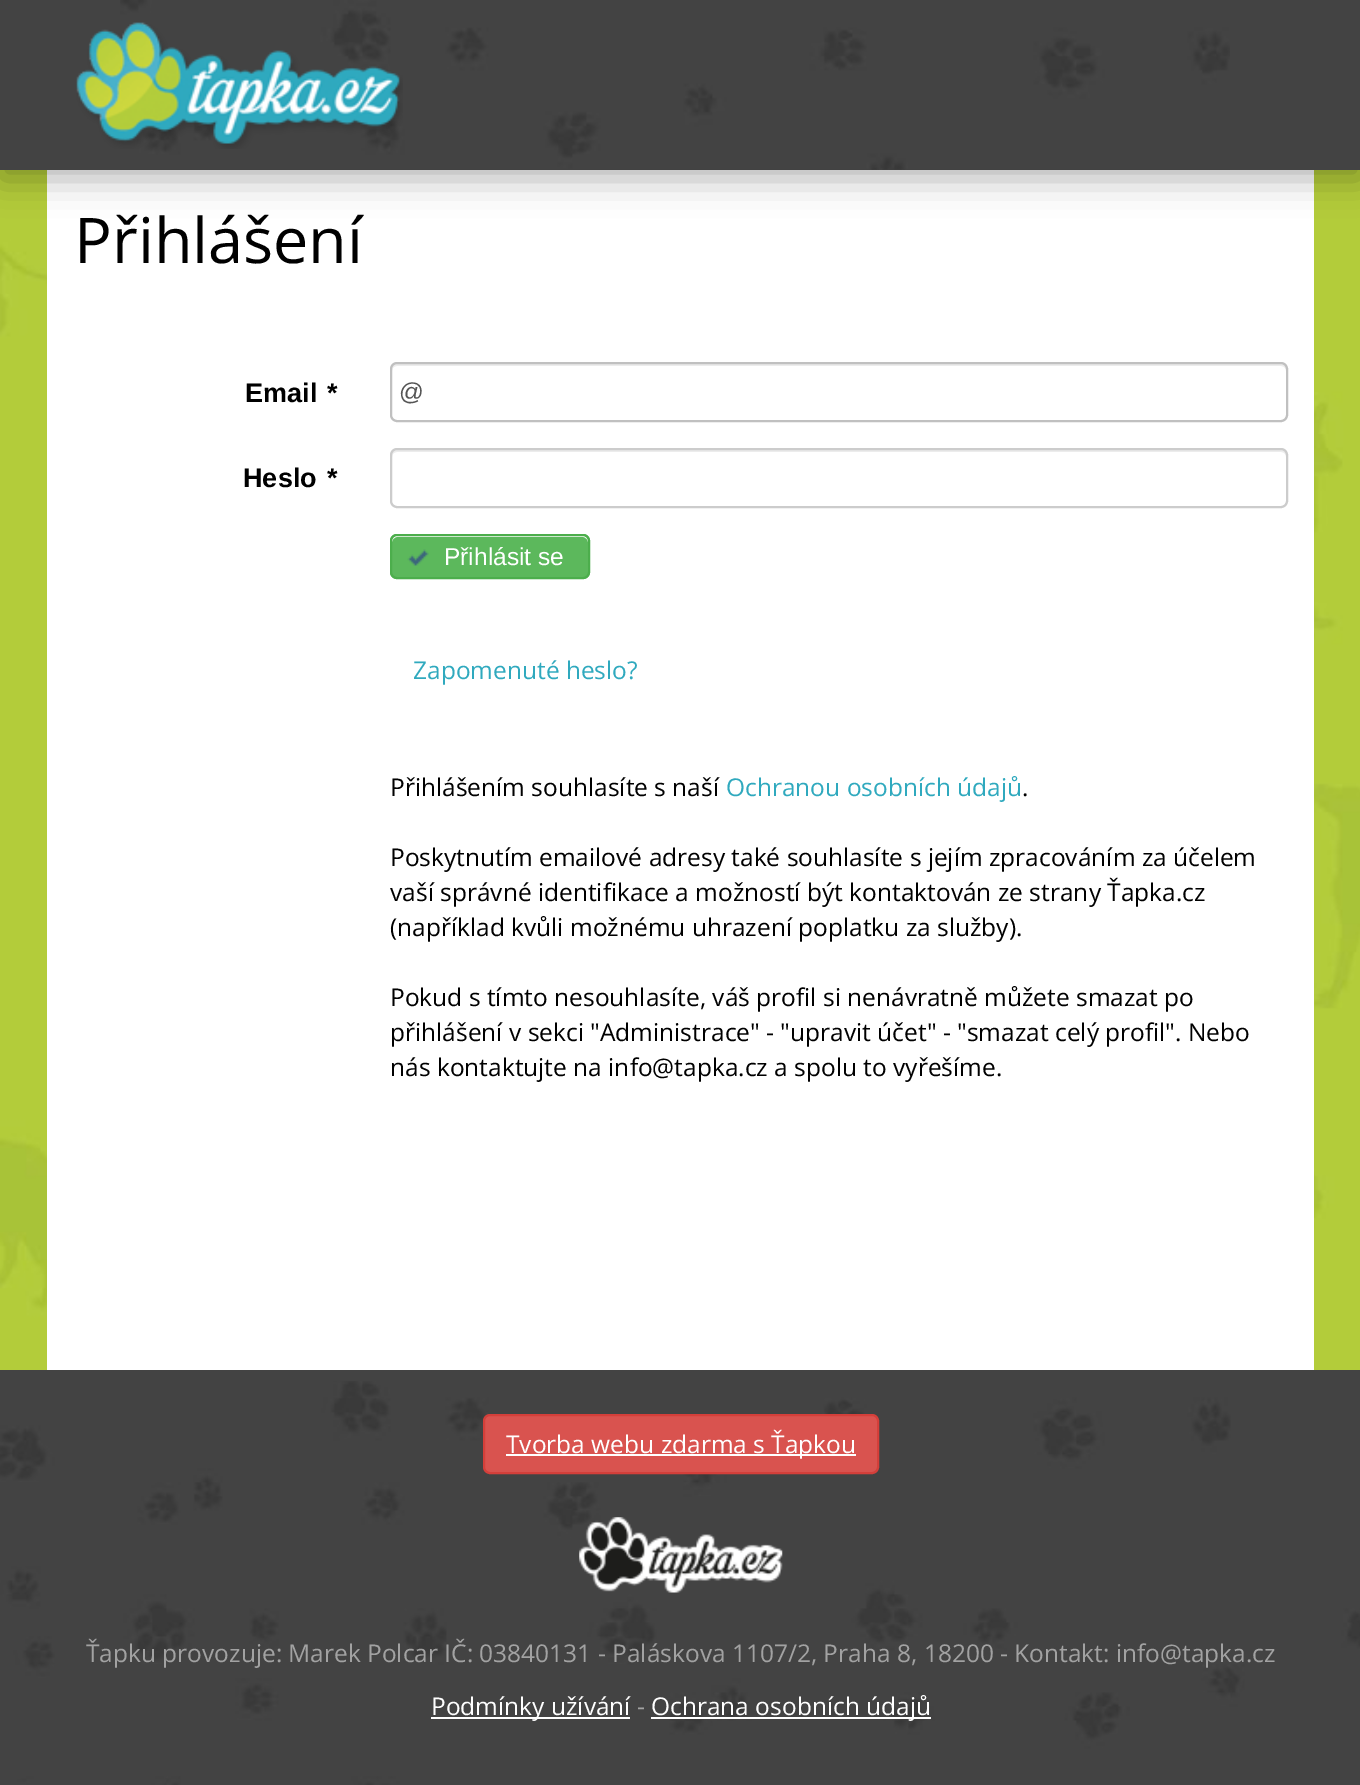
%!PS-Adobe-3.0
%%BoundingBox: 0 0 1360 1785
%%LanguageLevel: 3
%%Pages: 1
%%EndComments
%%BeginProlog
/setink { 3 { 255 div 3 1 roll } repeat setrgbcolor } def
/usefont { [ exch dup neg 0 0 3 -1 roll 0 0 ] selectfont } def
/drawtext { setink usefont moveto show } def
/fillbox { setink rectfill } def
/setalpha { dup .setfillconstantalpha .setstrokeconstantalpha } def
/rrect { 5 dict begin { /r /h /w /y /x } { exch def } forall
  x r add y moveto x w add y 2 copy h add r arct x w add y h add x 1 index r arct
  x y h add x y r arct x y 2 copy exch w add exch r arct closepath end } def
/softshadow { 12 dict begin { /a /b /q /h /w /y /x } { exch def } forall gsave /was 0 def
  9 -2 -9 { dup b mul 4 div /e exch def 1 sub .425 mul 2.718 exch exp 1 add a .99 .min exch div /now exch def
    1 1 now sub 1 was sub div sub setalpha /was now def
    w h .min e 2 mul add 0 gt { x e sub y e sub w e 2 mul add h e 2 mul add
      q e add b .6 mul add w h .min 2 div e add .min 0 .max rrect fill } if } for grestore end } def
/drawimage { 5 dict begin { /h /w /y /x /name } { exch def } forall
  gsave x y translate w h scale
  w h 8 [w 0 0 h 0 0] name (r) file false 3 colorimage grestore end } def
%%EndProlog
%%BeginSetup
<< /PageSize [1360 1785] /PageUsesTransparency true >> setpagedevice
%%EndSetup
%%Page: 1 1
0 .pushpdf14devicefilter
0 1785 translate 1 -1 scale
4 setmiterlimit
0 0 1360 1785 255 255 255 fillbox
(assets/img1.rgb) 0 170 1360 1200 drawimage
47 170 1267 1200 255 255 255 fillbox
0 0 0 setink
0 9 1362 170 0 17.5 0.3 softshadow
0 0 1360 170 67 67 67 fillbox
(assets/img2.rgb) 120 0 1110 170 drawimage
(assets/img3.rgb) 76 22 327 127 drawimage
(Přihlášení) 74 263 /OpenSans-Regular 63 0 0 0 drawtext
(Email) 245 402 /LiberationSans-Bold 27 0 0 0 drawtext
(*) 327 402 /LiberationSans-Bold 27 0 0 0 drawtext
236 236 236 setink
397 366 moveto 1281 366 lineto 1284 366 1286 368 1286 371 curveto 1286 369 lineto 1286 366 1284 364 1281 364 curveto 397 364 lineto 394 364 392 366 392 369 curveto 392 371 lineto 392 368 394 366 397 366 curveto closepath fill
192 192 192 setink
2 setlinewidth
391 363 896 58 6 rrect stroke
(@) 399 400 /LiberationSans-Regular 24.5 85 85 85 drawtext
(Heslo) 243 487 /LiberationSans-Bold 27 0 0 0 drawtext
(*) 327 487 /LiberationSans-Bold 27 0 0 0 drawtext
236 236 236 setink
397 452 moveto 1281 452 lineto 1284 452 1286 454 1286 457 curveto 1286 455 lineto 1286 452 1284 450 1281 450 curveto 397 450 lineto 394 450 392 452 392 455 curveto 392 457 lineto 392 454 394 452 397 452 curveto closepath fill
204 204 204 setink
391 449 896 58 6 rrect stroke
92 184 92 setink
390 534 200 45 7 rrect fill
255 255 255 setink
397 537 moveto 583 537 lineto 586 537 588 540 588 542 curveto 588 541 lineto 588 538 586 536 583 536 curveto 397 536 lineto 394 536 392 538 392 541 curveto 392 542 lineto 392 540 394 537 397 537 curveto closepath fill
76 174 76 setink
391 535 198 43 6 rrect stroke
(assets/img4.rgb) 407 549 22 17 drawimage
(Přihlásit se) 444 565 /LiberationSans-Regular 24.5 255 255 255 drawtext
(Zapomenuté heslo?) 413 679 /OpenSans-Regular 24.5 47 169 190 drawtext
(Přihlášením souhlasíte s naší) 390 796 /OpenSans-Regular 24.5 0 0 0 drawtext
(Ochranou osobních údajů) 726 796 /OpenSans-Regular 24.5 47 169 190 drawtext
(.) 1022 796 /OpenSans-Regular 24.5 0 0 0 drawtext
(Poskytnutím emailové adresy také souhlasíte s jejím zpracováním za účelem) 390 866 /OpenSans-Regular 24.5 0 0 0 drawtext
(vaší správné identifikace a možností být kontaktován ze strany Ťapka.cz) 390 901 /OpenSans-Regular 24.5 0 0 0 drawtext
(\(například kvůli možnému uhrazení poplatku za služby\).) 390 936 /OpenSans-Regular 24.5 0 0 0 drawtext
(Pokud s tímto nesouhlasíte, váš profil si nenávratně můžete smazat po) 390 1006 /OpenSans-Regular 24.5 0 0 0 drawtext
(přihlášení v sekci "Administrace" - "upravit účet" - "smazat celý profil". Nebo) 390 1041 /OpenSans-Regular 24.5 0 0 0 drawtext
(nás kontaktujte na info@tapka.cz a spolu to vyřešíme.) 390 1076 /OpenSans-Regular 24.5 0 0 0 drawtext
0 1370 1360 11 67 67 67 fillbox
(assets/img5.rgb) 0 1381 1360 404 drawimage
217 83 79 setink
484 1415 394 58 6 rrect gsave fill grestore
212 63 58 setink
stroke
506 1454 350 2 255 255 255 fillbox
(Tvorba webu zdarma s Ťapkou) 506 1453 /OpenSans-Regular 24.5 255 255 255 drawtext
(assets/img6.rgb) 579 1517 204 76 drawimage
(Ťapku provozuje: Marek Polcar IČ: 03840131 - Paláskova 1107/2, Praha 8, 18200 - Kontakt: info@tapka.cz) 86 1662 /OpenSans-Regular 24.5 162 162 162 drawtext
431 1717 199 2 255 255 255 fillbox
(Podmínky užívání) 431 1715 /OpenSans-Regular 24.5 255 255 255 drawtext
(-) 637 1715 /OpenSans-Regular 24.5 162 162 162 drawtext
651 1717 280 2 255 255 255 fillbox
(Ochrana osobních údajů) 651 1715 /OpenSans-Regular 24.5 255 255 255 drawtext
.poppdf14devicefilter showpage
%%EOF
